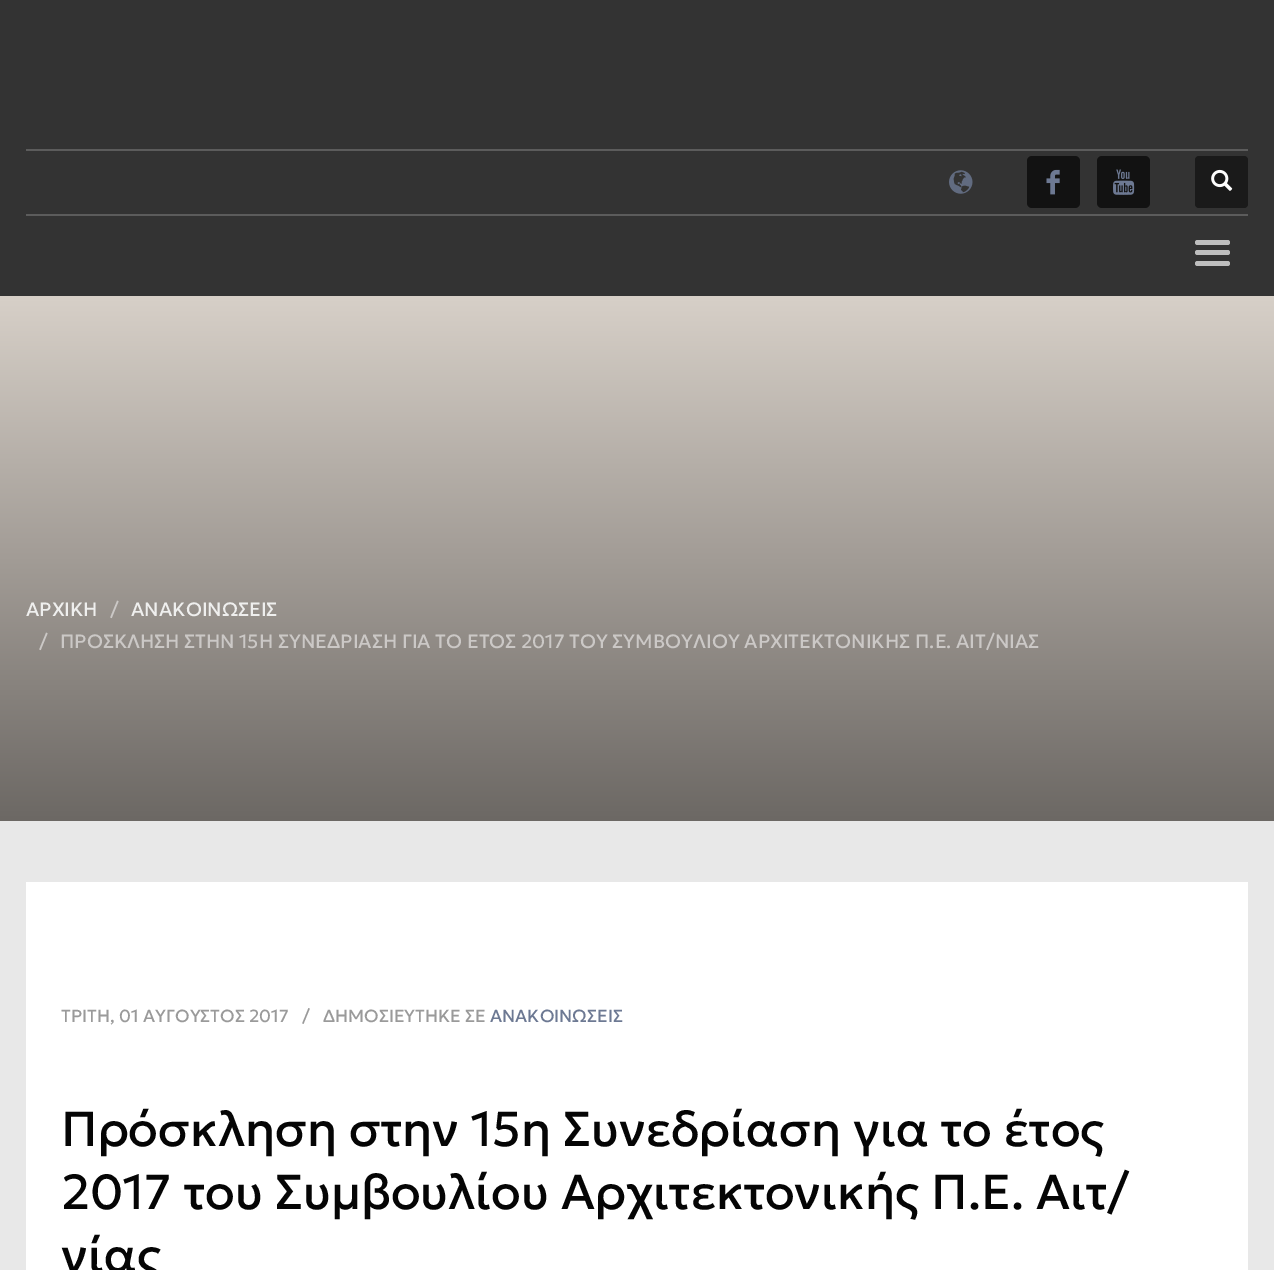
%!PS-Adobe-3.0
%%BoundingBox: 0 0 1274 1270
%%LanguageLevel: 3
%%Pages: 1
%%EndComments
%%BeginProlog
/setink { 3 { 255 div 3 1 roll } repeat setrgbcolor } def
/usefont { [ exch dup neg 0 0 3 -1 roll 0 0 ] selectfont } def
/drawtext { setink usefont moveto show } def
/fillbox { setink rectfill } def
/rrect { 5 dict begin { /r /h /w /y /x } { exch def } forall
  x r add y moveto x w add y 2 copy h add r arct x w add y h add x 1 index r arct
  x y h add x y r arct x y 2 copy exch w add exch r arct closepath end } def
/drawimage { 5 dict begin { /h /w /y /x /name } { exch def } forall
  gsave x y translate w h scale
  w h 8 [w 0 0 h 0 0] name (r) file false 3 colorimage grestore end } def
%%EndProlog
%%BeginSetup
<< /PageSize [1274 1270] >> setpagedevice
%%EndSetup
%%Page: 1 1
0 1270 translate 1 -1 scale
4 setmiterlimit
0 0 1274 1270 232 232 232 fillbox
0 0 1274 296 51 51 51 fillbox
26 149 1222 2 92 92 92 fillbox
(assets/img1.rgb) 949 170 24 24 drawimage
18 18 18 setink
1027 156 53 52 5 rrect fill
(assets/img2.rgb) 1046 169 14 26 drawimage
1097 156 53 52 5 rrect fill
(assets/img3.rgb) 1113 169 22 26 drawimage
26 26 26 setink
1195 156 53 52 4 rrect fill
(assets/img4.rgb) 1211 169 22 22 drawimage
26 214 1222 2 92 92 92 fillbox
190 190 190 setink
1195 240 35 5 2.5 rrect fill
1195 250 35 5 2.5 rrect fill
1195 261 35 5 2.5 rrect fill
gsave 0 296 moveto 1274 296 lineto 1274 821 lineto 0 821 lineto closepath clip newpath
<< /ShadingType 2 /ColorSpace /DeviceRGB /Coords [637 296 637 821] /Extend [true true] /Function << /FunctionType 2 /Domain [0 1] /C0 [0.843 0.816 0.784] /C1 [0.424 0.408 0.392] /N 1 >> >> shfill grestore
(ΑΡΧΙΚΗ) 26 616 /Geologica-Regular 19.25 239 239 238 drawtext
(/) 110 616 /Geologica-Thin 19.25 203 200 198 drawtext
(ΑΝΑΚΟΙΝΩΣΕΙΣ) 131 616 /Geologica-Regular 19.25 239 239 238 drawtext
(/) 39 648 /Geologica-Thin 19.25 203 200 198 drawtext
(ΠΡΟΣΚΛΗΣΗ ΣΤΗΝ) 60 648 /Geologica-Regular 19.25 203 200 198 drawtext
(15) 239 648 /Geologica-Thin 19.25 203 200 198 drawtext
(Η ΣΥΝΕΔΡΙΑΣΗ ΓΙΑ ΤΟ ΕΤΟΣ) 259 648 /Geologica-Regular 19.25 203 200 198 drawtext
(2017) 521 648 /Geologica-Thin 19.25 203 200 198 drawtext
(ΤΟΥ ΣΥΜΒΟΥΛΙΟΥ ΑΡΧΙΤΕΚΤΟΝΙΚΗΣ Π) 569 648 /Geologica-Regular 19.25 203 200 198 drawtext
(.) 929 648 /Geologica-Thin 19.25 203 200 198 drawtext
(Ε) 935 648 /Geologica-Regular 19.25 203 200 198 drawtext
(.) 946 648 /Geologica-Thin 19.25 203 200 198 drawtext
(ΑΙΤ) 956 648 /Geologica-Regular 19.25 203 200 198 drawtext
(/) 986 648 /Geologica-Thin 19.25 203 200 198 drawtext
(ΝΙΑΣ) 995 648 /Geologica-Regular 19.25 203 200 198 drawtext
26 882 1222 388 255 255 255 fillbox
(ΤΡΙΤΗ) 61 1022 /Geologica-Regular 17.5 154 154 154 drawtext
(, 01) 110 1022 /Geologica-Thin 17.5 154 154 154 drawtext
(ΑΥΓΟΥΣΤΟΣ) 143 1022 /Geologica-Regular 17.5 154 154 154 drawtext
(2017) 249 1022 /Geologica-Thin 17.5 154 154 154 drawtext
(/) 302 1022 /Geologica-Thin 17.5 154 154 154 drawtext
(ΔΗΜΟΣΙΕΥΤΗΚΕ ΣΕ) 323 1022 /Geologica-Regular 17.5 154 154 154 drawtext
(ΑΝΑΚΟΙΝΩΣΕΙΣ) 490 1022 /Geologica-Regular 17.5 109 121 147 drawtext
(Πρόσκληση στην) 61 1146 /Geologica-Regular 49 5 5 5 drawtext
(15) 471 1146 /Geologica-Thin 49 5 5 5 drawtext
(η Συνεδρίαση για το έτος) 521 1146 /Geologica-Regular 49 5 5 5 drawtext
(2017) 61 1209 /Geologica-Thin 49 5 5 5 drawtext
(του Συμβουλίου Αρχιτεκτονικής Π) 184 1209 /Geologica-Regular 49 5 5 5 drawtext
(.) 968 1209 /Geologica-Thin 49 5 5 5 drawtext
(Ε) 981 1209 /Geologica-Regular 49 5 5 5 drawtext
(.) 1011 1209 /Geologica-Thin 49 5 5 5 drawtext
(Αιτ) 1036 1209 /Geologica-Regular 49 5 5 5 drawtext
(/) 1107 1209 /Geologica-Thin 49 5 5 5 drawtext
(νίας) 61 1272 /Geologica-Regular 49 5 5 5 drawtext
showpage
%%EOF
